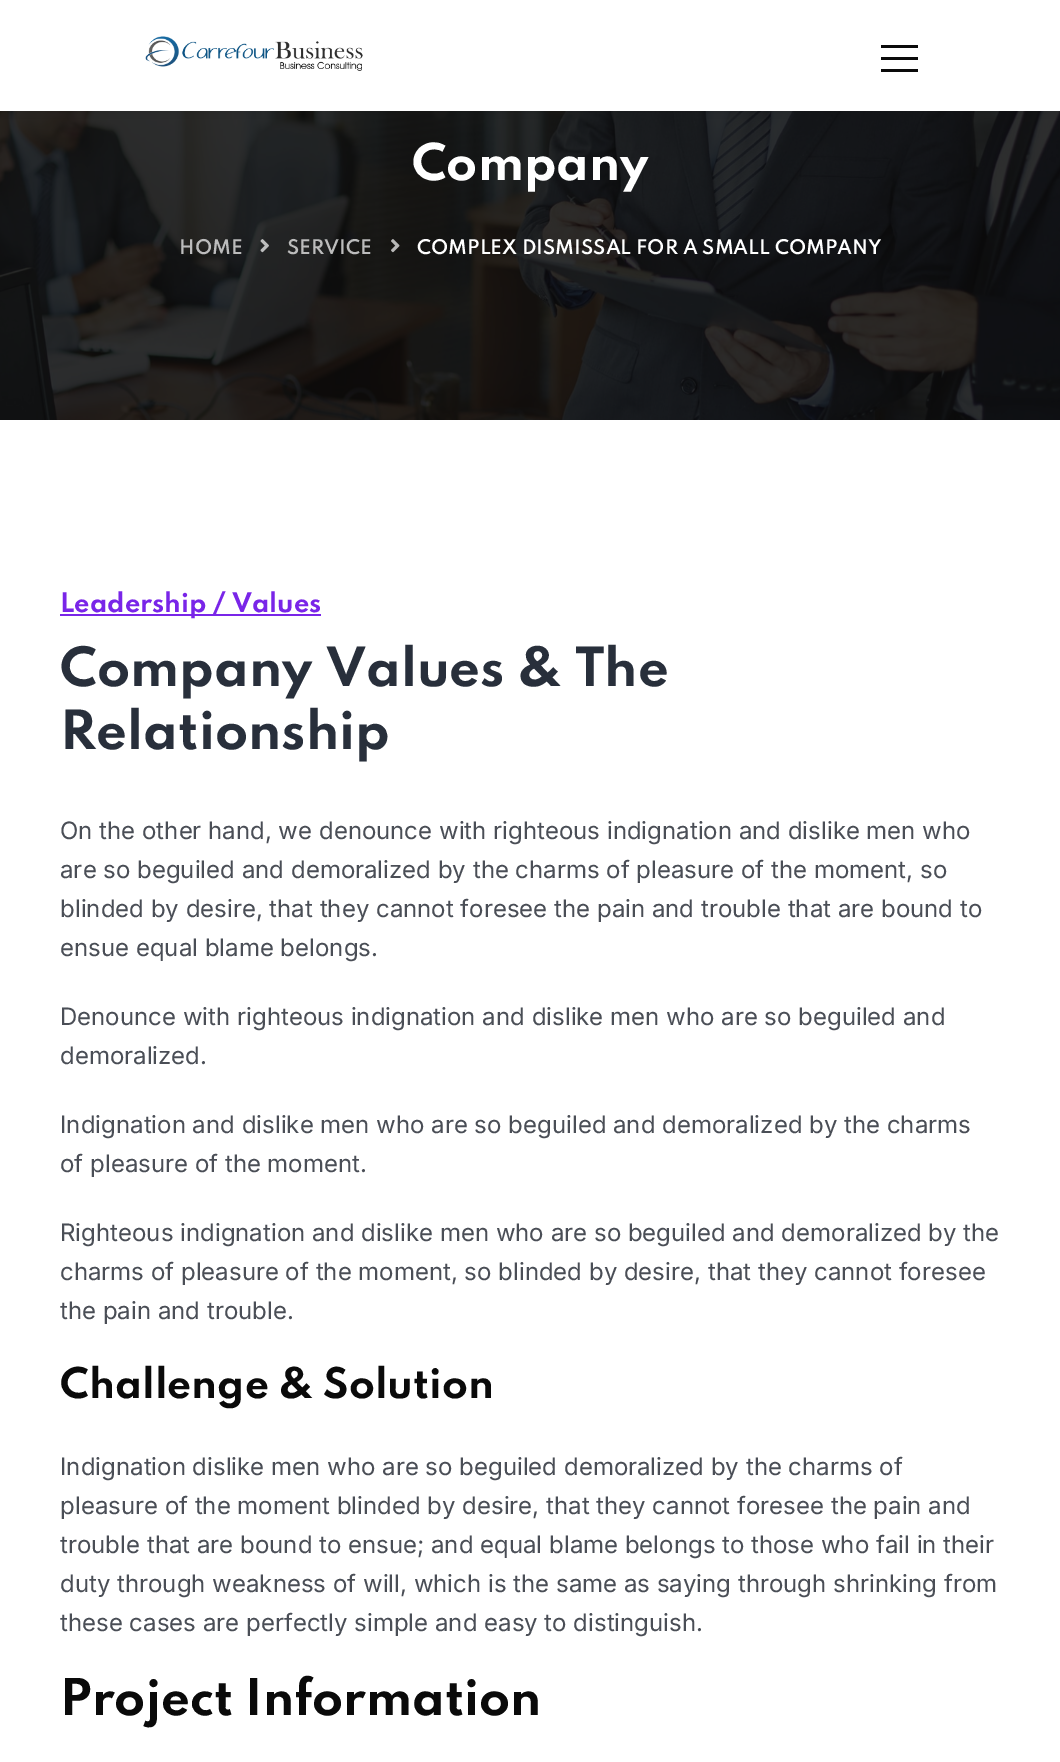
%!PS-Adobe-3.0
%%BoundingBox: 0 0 1060 1762
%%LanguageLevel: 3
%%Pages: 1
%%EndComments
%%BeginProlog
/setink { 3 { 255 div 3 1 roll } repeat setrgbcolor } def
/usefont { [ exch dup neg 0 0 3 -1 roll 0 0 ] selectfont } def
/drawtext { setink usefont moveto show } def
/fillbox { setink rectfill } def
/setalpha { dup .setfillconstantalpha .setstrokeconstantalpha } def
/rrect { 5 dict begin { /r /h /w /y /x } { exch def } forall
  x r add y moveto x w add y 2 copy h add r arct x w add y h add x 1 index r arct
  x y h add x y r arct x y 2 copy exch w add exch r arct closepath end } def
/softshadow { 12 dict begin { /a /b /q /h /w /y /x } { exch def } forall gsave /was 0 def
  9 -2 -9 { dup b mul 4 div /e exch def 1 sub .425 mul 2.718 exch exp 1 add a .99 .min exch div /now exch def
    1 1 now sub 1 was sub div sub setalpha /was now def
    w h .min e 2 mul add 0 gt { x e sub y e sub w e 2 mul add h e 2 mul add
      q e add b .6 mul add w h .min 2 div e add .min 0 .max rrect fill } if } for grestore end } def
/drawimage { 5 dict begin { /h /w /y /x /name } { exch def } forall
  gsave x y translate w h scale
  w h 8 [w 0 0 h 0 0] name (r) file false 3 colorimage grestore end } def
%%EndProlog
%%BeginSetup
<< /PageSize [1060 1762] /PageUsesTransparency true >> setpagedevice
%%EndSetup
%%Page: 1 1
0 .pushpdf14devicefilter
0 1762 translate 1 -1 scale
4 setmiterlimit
0 0 1060 1762 255 255 255 fillbox
(assets/img2.rgb) 0 111 1060 309 drawimage
0 0 0 setink
0 0 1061 111 0 11 0.1 softshadow
0 0 1060 111 255 255 255 fillbox
(assets/img1.rgb) 145 36 218 35 drawimage
881 45 37 3 10 10 10 fillbox
881 57 37 3 10 10 10 fillbox
881 69 37 3 10 10 10 fillbox
(Company) 412 180 /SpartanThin-Bold 45 255 255 255 drawtext
(HOME) 179 254 /SpartanThin-SemiBold 18 188 188 188 drawtext
(assets/img3.rgb) 260 239 9 14 drawimage
(SERVICE) 287 254 /SpartanThin-SemiBold 18 188 188 188 drawtext
(assets/img4.rgb) 391 239 9 14 drawimage
(COMPLEX DISMISSAL FOR A SMALL COMPANY) 417 254 /SpartanThin-SemiBold 18 255 255 255 drawtext
60 614 261 2 121 37 232 fillbox
(Leadership / Values) 60 612 /SpartanThin-Bold 24 121 37 232 drawtext
(Company Values & The) 60 686 /SpartanThin-Bold 48 40 47 59 drawtext
(Relationship) 60 749 /SpartanThin-Bold 48 40 47 59 drawtext
(On the other hand, we denounce with righteous indignation and dislike men who) 60 839 /Inter-Regular 24 74 78 86 drawtext
(are so beguiled and demoralized by the charms of pleasure of the moment, so) 60 878 /Inter-Regular 24 74 78 86 drawtext
(blinded by desire, that they cannot foresee the pain and trouble that are bound to) 60 917 /Inter-Regular 24 74 78 86 drawtext
(ensue equal blame belongs.) 60 956 /Inter-Regular 24 74 78 86 drawtext
(Denounce with righteous indignation and dislike men who are so beguiled and) 60 1025 /Inter-Regular 24 74 78 86 drawtext
(demoralized.) 60 1064 /Inter-Regular 24 74 78 86 drawtext
(Indignation and dislike men who are so beguiled and demoralized by the charms) 60 1133 /Inter-Regular 24 74 78 86 drawtext
(of pleasure of the moment.) 60 1172 /Inter-Regular 24 74 78 86 drawtext
(Righteous indignation and dislike men who are so beguiled and demoralized by the) 60 1241 /Inter-Regular 24 74 78 86 drawtext
(charms of pleasure of the moment, so blinded by desire, that they cannot foresee) 60 1280 /Inter-Regular 24 74 78 86 drawtext
(the pain and trouble.) 60 1319 /Inter-Regular 24 74 78 86 drawtext
(Challenge & Solution) 60 1398 /SpartanThin-Bold 37.5 10 10 10 drawtext
(Indignation dislike men who are so beguiled demoralized by the charms of) 60 1475 /Inter-Regular 24 74 78 86 drawtext
(pleasure of the moment blinded by desire, that they cannot foresee the pain and) 60 1514 /Inter-Regular 24 74 78 86 drawtext
(trouble that are bound to ensue; and equal blame belongs to those who fail in their) 60 1553 /Inter-Regular 24 74 78 86 drawtext
(duty through weakness of will, which is the same as saying through shrinking from) 60 1592 /Inter-Regular 24 74 78 86 drawtext
(these cases are perfectly simple and easy to distinguish.) 60 1631 /Inter-Regular 24 74 78 86 drawtext
(Project Information) 60 1715 /SpartanThin-Bold 45 10 10 10 drawtext
.poppdf14devicefilter showpage
%%EOF
